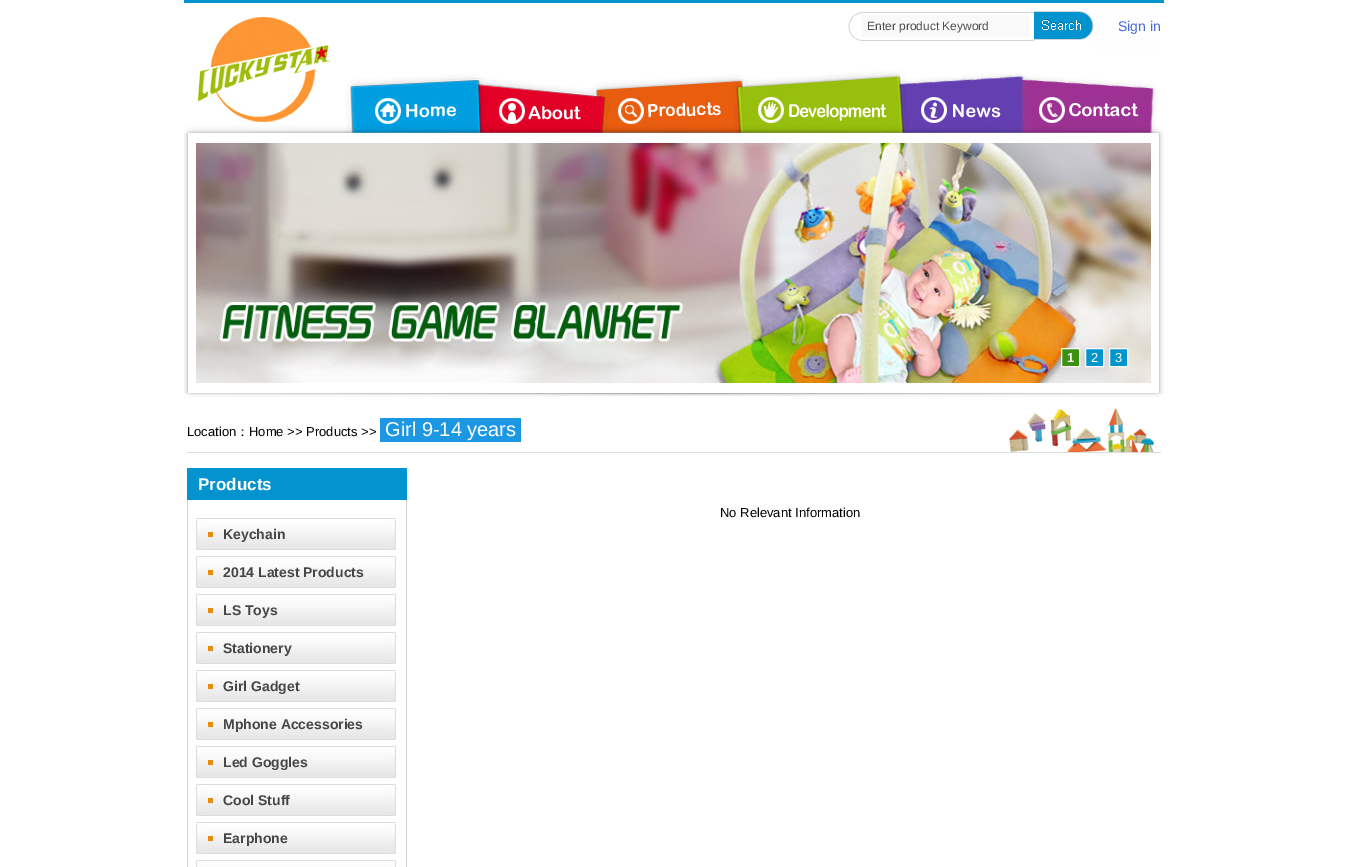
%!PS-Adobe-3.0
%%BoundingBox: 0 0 1347 867
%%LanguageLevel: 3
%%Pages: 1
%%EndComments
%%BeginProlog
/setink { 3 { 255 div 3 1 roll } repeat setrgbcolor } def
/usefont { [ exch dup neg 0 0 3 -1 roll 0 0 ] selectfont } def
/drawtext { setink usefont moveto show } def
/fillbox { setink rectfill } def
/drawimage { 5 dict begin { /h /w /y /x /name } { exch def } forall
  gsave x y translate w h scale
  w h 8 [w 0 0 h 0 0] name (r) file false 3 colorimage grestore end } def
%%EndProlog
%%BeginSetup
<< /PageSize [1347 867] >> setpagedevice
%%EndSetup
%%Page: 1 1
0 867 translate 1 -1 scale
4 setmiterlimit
0 0 1347 867 255 255 255 fillbox
184 0 980 3 3 147 207 fillbox
(assets/img1.rgb) 184 12 980 131 drawimage
862 15 168 22 249 249 249 fillbox
(Enter product Keyword) 867 30 /LiberationSans-Regular 12 78 78 78 drawtext
(assets/img2.rgb) 1034 11 60 29 drawimage
(Sign in) 1118 31 /LiberationSans-Regular 14 72 102 222 drawtext
(assets/img3.rgb) 184 143 980 250 drawimage
(assets/img4.rgb) 196 143 955 240 drawimage
58 146 16 setink
1061.5 348.5 moveto 1079.5 348.5 lineto 1079.5 366.5 lineto 1061.5 366.5 lineto closepath gsave fill grestore
255 255 255 setink
stroke
(1) 1067 362 /LiberationSans-Bold 13 255 255 255 drawtext
0 149 205 setink
1085.5 348.5 moveto 1103.5 348.5 lineto 1103.5 366.5 lineto 1085.5 366.5 lineto closepath gsave fill grestore
255 255 255 setink
stroke
(2) 1091 362 /LiberationSans-Regular 13 255 255 255 drawtext
0 149 205 setink
1109.5 348.5 moveto 1127.5 348.5 lineto 1127.5 366.5 lineto 1109.5 366.5 lineto closepath gsave fill grestore
255 255 255 setink
stroke
(3) 1115 362 /LiberationSans-Regular 13 255 255 255 drawtext
(assets/img5.rgb) 184 393 979 4 drawimage
187 452 974 1 221 221 221 fillbox
(Location) 187 436 /LiberationSans-Regular 13 0 0 0 drawtext
(：) 236 436 /WenQuanYiZenHei-Medium 13 0 0 0 drawtext
(Home >> Products >>) 249 436 /LiberationSans-Regular 13 0 0 0 drawtext
380 418 141 24 28 151 228 fillbox
(Girl 9-14 years) 385 436 /LiberationSans-Regular 20 255 255 255 drawtext
(assets/img6.rgb) 1008 408 146 44 drawimage
187 468 220 32 3 147 207 fillbox
(Products) 198 490 /LiberationSans-Bold 17 255 255 255 drawtext
406 500 1 367 212 212 212 fillbox
187 500 1 367 212 212 212 fillbox
(assets/img7.rgb) 196 518 200 32 drawimage
(Keychain) 223 539 /LiberationSans-Bold 14 70 70 70 drawtext
(assets/img7.rgb) 196 556 200 32 drawimage
(2014 Latest Products) 223 577 /LiberationSans-Bold 14 70 70 70 drawtext
(assets/img7.rgb) 196 594 200 32 drawimage
(LS Toys) 223 615 /LiberationSans-Bold 14 70 70 70 drawtext
(assets/img7.rgb) 196 632 200 32 drawimage
(Stationery) 223 653 /LiberationSans-Bold 14 70 70 70 drawtext
(assets/img7.rgb) 196 670 200 32 drawimage
(Girl Gadget) 223 691 /LiberationSans-Bold 14 70 70 70 drawtext
(assets/img7.rgb) 196 708 200 32 drawimage
(Mphone Accessories) 223 729 /LiberationSans-Bold 14 70 70 70 drawtext
(assets/img7.rgb) 196 746 200 32 drawimage
(Led Goggles) 223 767 /LiberationSans-Bold 14 70 70 70 drawtext
(assets/img7.rgb) 196 784 200 32 drawimage
(Cool Stuff) 223 805 /LiberationSans-Bold 14 70 70 70 drawtext
(assets/img7.rgb) 196 822 200 32 drawimage
(Earphone) 223 843 /LiberationSans-Bold 14 70 70 70 drawtext
(assets/img8.rgb) 196 860 200 7 drawimage
(No Relevant Information) 720 517 /LiberationSans-Regular 13 0 0 0 drawtext
showpage
%%EOF
